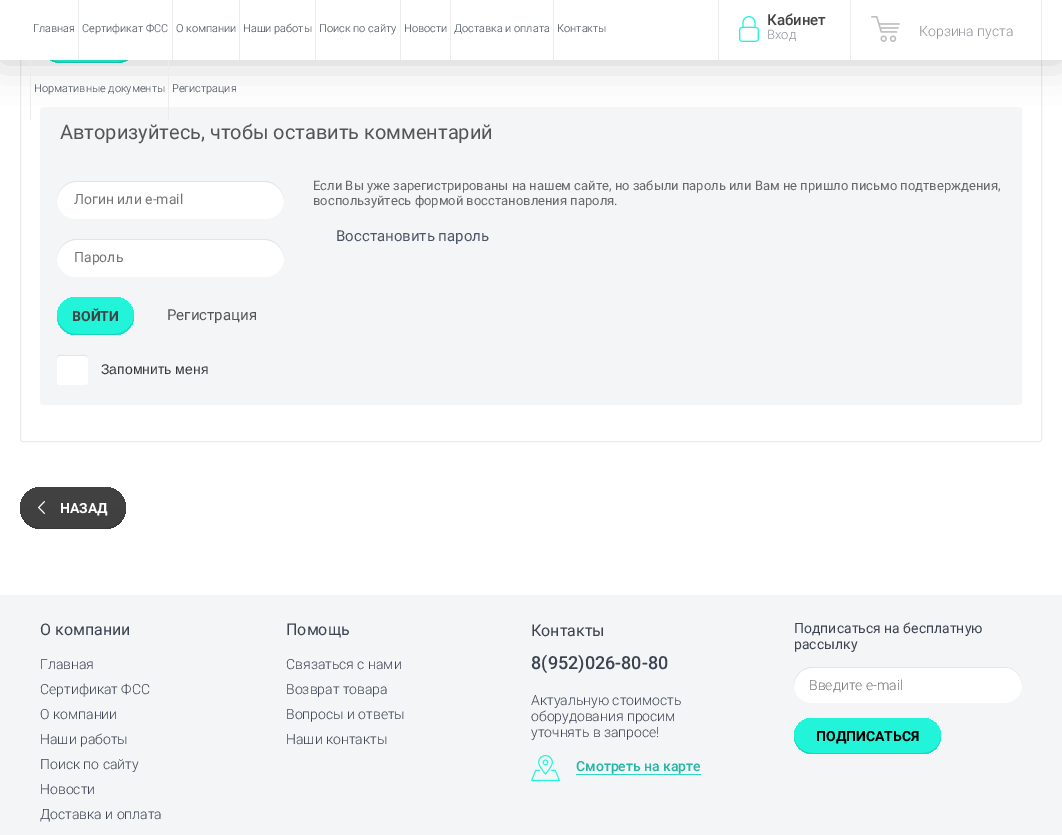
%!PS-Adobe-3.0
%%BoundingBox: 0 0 1062 835
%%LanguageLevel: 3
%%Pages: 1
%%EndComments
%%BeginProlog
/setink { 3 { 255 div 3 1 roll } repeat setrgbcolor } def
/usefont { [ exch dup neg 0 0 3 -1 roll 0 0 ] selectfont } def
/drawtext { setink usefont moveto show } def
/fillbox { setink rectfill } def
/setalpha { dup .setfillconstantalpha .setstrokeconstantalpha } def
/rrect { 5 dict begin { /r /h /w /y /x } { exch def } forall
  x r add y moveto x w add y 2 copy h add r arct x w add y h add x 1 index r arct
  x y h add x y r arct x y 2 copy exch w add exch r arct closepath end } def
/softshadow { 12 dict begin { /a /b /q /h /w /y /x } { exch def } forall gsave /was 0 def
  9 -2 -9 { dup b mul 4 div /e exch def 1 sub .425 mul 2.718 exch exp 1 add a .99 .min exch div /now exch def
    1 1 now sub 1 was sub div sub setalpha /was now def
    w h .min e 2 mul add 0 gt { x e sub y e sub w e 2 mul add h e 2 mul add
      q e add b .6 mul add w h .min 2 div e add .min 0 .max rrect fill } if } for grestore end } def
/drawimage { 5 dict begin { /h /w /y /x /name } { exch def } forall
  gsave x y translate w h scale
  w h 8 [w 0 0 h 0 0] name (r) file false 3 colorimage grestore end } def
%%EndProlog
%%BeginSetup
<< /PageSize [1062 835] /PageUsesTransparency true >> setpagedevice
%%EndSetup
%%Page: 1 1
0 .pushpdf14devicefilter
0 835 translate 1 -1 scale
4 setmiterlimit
0 0 1062 835 255 255 255 fillbox
236 236 236 setink
20.5 0.5 1021 441 2.5 rrect stroke
33 244 217 setink
40 21 98 42 21 rrect fill
gsave
40 21 98 42 21 rrect clip newpath
gsave 40 22 moveto 138 22 lineto 138 42 lineto 138 53.5 128.5 63 117 63 curveto 61 63 lineto 49.5 63 40 53.5 40 42 curveto closepath clip newpath
<< /ShadingType 2 /ColorSpace /DeviceRGB /Coords [89 63 89 22] /Extend [true true] /Function << /FunctionType 2 /Domain [0 1] /C0 [0.129 0.957 0.851] /C1 [0.133 0.957 0.855] /N 1 >> >> shfill grestore
grestore
0.14 setalpha
0 0 0 setink
41 42 moveto 41 54 50 63 61 63 curveto 117 63 lineto 128 63 137 54 137 42 curveto 137 53 128 62 117 62 curveto 61 62 lineto 50 62 41 53 41 42 curveto closepath fill
1 setalpha
244 245 246 setink
40 107 982 298 3 rrect fill
0 0 0 setink
0 1 1062 60 0 20 0.2 softshadow
0 0 1062 60 255 255 255 fillbox
(Главная) 33 32 /Roboto-Light 11 60 68 82 drawtext
78 0 1 60 236 236 236 fillbox
(Сертификат ФСС) 82 32 /Roboto-Light 11 60 68 82 drawtext
172 0 1 60 236 236 236 fillbox
(О компании) 176 32 /Roboto-Light 11 60 68 82 drawtext
239 0 1 60 236 236 236 fillbox
(Наши работы) 243 32 /Roboto-Light 11 60 68 82 drawtext
315 0 1 60 236 236 236 fillbox
(Поиск по сайту) 319 32 /Roboto-Light 11 60 68 82 drawtext
400 0 1 60 236 236 236 fillbox
(Новости) 404 32 /Roboto-Light 11 60 68 82 drawtext
450 0 1 60 236 236 236 fillbox
(Доставка и оплата) 454 32 /Roboto-Light 11 60 68 82 drawtext
553 0 1 60 236 236 236 fillbox
(Контакты) 557 32 /Roboto-Light 11 60 68 82 drawtext
30 60 1 60 236 236 236 fillbox
(Нормативные документы) 34 92 /Roboto-Light 11 60 68 82 drawtext
168 60 1 60 236 236 236 fillbox
(Регистрация) 172 92 /Roboto-Light 11 60 68 82 drawtext
718 0 1 60 236 236 236 fillbox
850 0 1 60 236 236 236 fillbox
(assets/img1.rgb) 739 16 20 26 drawimage
(Кабинет) 767 25 /Roboto-Medium 15 66 66 66 drawtext
(Вход) 767 39 /Roboto-Light 13 142 146 152 drawtext
1041 0 1 60 236 236 236 fillbox
(assets/img2.rgb) 871 16 29 26 drawimage
(Корзина пуста) 919 36 /Roboto-Light 14 142 146 152 drawtext
(Авторизуйтесь, чтобы оставить комментарий) 60 139 /Roboto-Regular 20 85 85 85 drawtext
255 255 255 setink
57 181 227 38 19 rrect fill
227 228 229 setink
76 182 moveto 265 182 lineto 275 182 284 191 284 201 curveto 284 200 lineto 284 190 275 181 265 181 curveto 76 181 lineto 66 181 57 190 57 200 curveto 57 201 lineto 57 191 66 182 76 182 curveto closepath fill
(Логин или e-mail) 74 204 /Roboto-Regular 14 117 117 117 drawtext
255 255 255 setink
57 239 227 38 19 rrect fill
227 228 229 setink
76 240 moveto 265 240 lineto 275 240 284 249 284 259 curveto 284 258 lineto 284 248 275 239 265 239 curveto 76 239 lineto 66 239 57 248 57 258 curveto 57 259 lineto 57 249 66 240 76 240 curveto closepath fill
(Пароль) 74 262 /Roboto-Regular 14 117 117 117 drawtext
gsave 57 297 77 38 19 rrect clip newpath
<< /ShadingType 2 /ColorSpace /DeviceRGB /Coords [96 335 96 297] /Extend [true true] /Function << /FunctionType 2 /Domain [0 1] /C0 [0.129 0.957 0.851] /C1 [0.133 0.957 0.855] /N 1 >> >> shfill grestore
0.14 setalpha
0 0 0 setink
57 315 moveto 57 316 lineto 57 326 66 335 76 335 curveto 115 335 lineto 125 335 134 326 134 316 curveto 134 315 lineto 134 325 125 334 115 334 curveto 76 334 lineto 66 334 57 325 57 315 curveto closepath fill
1 setalpha
(ВОЙТИ) 72 321 /Roboto-Bold 14 66 66 66 drawtext
(Регистрация) 167 320 /Roboto-Regular 15 85 85 85 drawtext
255 255 255 setink
57 355 31 30 3 rrect fill
227 228 229 setink
60 356 moveto 85 356 lineto 87 356 88 357 88 359 curveto 88 354 85 355 81 355 curveto 64 355 lineto 60 355 57 354 57 359 curveto 57 357 58 356 60 356 curveto closepath fill
(Запомнить меня) 101 374 /LiberationSans-Regular 14 52 56 58 drawtext
(Если Вы уже зарегистрированы на нашем сайте, но забыли пароль или Вам не пришло письмо подтверждения,) 313 190 /Roboto-Regular 13 103 103 103 drawtext
(воспользуйтесь формой восстановления пароля.) 313 205 /Roboto-Regular 13 103 103 103 drawtext
(Восстановить пароль) 336 241 /Roboto-Regular 15 76 86 103 drawtext
gsave 20 487 106 42 21 rrect clip newpath
<< /ShadingType 2 /ColorSpace /DeviceRGB /Coords [73 529 73 487] /Extend [true true] /Function << /FunctionType 2 /Domain [0 1] /C0 [0.251 0.251 0.251] /C1 [0.259 0.259 0.259] /N 1 >> >> shfill grestore
0.14 setalpha
0 0 0 setink
20 508 moveto 20 518 27 527 37 529 curveto 52 529 lineto 109 529 lineto 119 527 126 518 126 508 curveto 126 519 117 528 105 528 curveto 41 528 lineto 29 528 20 519 20 508 curveto closepath fill
1 setalpha
(assets/img3.rgb) 38 501 7 13 drawimage
(НАЗАД) 60 513 /Roboto-Bold 14 255 255 255 drawtext
0 595 1062 240 244 245 246 fillbox
(О компании) 40 635 /Roboto-Regular 16 60 68 82 drawtext
(Главная) 40 669 /Roboto-Light 14 60 68 82 drawtext
(Сертификат ФСС) 40 694 /Roboto-Light 14 60 68 82 drawtext
(О компании) 40 719 /Roboto-Light 14 60 68 82 drawtext
(Наши работы) 40 744 /Roboto-Light 14 60 68 82 drawtext
(Поиск по сайту) 40 769 /Roboto-Light 14 60 68 82 drawtext
(Новости) 40 794 /Roboto-Light 14 60 68 82 drawtext
(Доставка и оплата) 40 819 /Roboto-Light 14 60 68 82 drawtext
(Помощь) 286 635 /Roboto-Regular 16 60 68 82 drawtext
(Связаться с нами) 286 669 /Roboto-Light 14 60 68 82 drawtext
(Возврат товара) 286 694 /Roboto-Light 14 60 68 82 drawtext
(Вопросы и ответы) 286 719 /Roboto-Light 14 60 68 82 drawtext
(Наши контакты) 286 744 /Roboto-Light 14 60 68 82 drawtext
(Контакты) 531 636 /Roboto-Regular 16 60 68 82 drawtext
(8\(952\)026-80-80) 531 669 /Roboto-Medium 18 60 68 82 drawtext
(Актуальную стоимость) 531 705 /Roboto-Light 14 60 68 82 drawtext
(оборудования просим) 531 721 /Roboto-Light 14 60 68 82 drawtext
(уточнять в запросе!) 531 737 /Roboto-Light 14 60 68 82 drawtext
(assets/img4.rgb) 531 755 29 26 drawimage
(Смотреть на карте) 576 771 /Roboto-Medium 14 36 183 167 drawtext
576 774 125 1 46 214 196 fillbox
(Подписаться на бесплатную) 794 633 /Roboto-Regular 14 60 68 82 drawtext
(рассылку) 794 649 /Roboto-Regular 14 60 68 82 drawtext
255 255 255 setink
794 667 228 36 18 rrect fill
227 228 229 setink
812 668 moveto 1008 668 lineto 1017 670 1022 678 1022 686 curveto 1022 685 lineto 1022 675 1014 667 1004 667 curveto 812 667 lineto 802 667 794 675 794 685 curveto 794 687 lineto 794 678 800 668 812 668 curveto closepath fill
(Введите e-mail) 809 690 /Roboto-Light 14 117 117 117 drawtext
gsave 794 718 147 36 18 rrect clip newpath
<< /ShadingType 2 /ColorSpace /DeviceRGB /Coords [868 754 868 718] /Extend [true true] /Function << /FunctionType 2 /Domain [0 1] /C0 [0.129 0.957 0.851] /C1 [0.133 0.957 0.855] /N 1 >> >> shfill grestore
0.14 setalpha
0 0 0 setink
794 736 moveto 794 746 802 754 812 754 curveto 923 754 lineto 933 754 941 746 941 736 curveto 941 745 933 753 923 753 curveto 812 753 lineto 802 753 794 745 794 736 curveto closepath fill
1 setalpha
(ПОДПИСАТЬСЯ) 816 741 /Roboto-Bold 14 0 0 0 drawtext
.poppdf14devicefilter showpage
%%EOF
